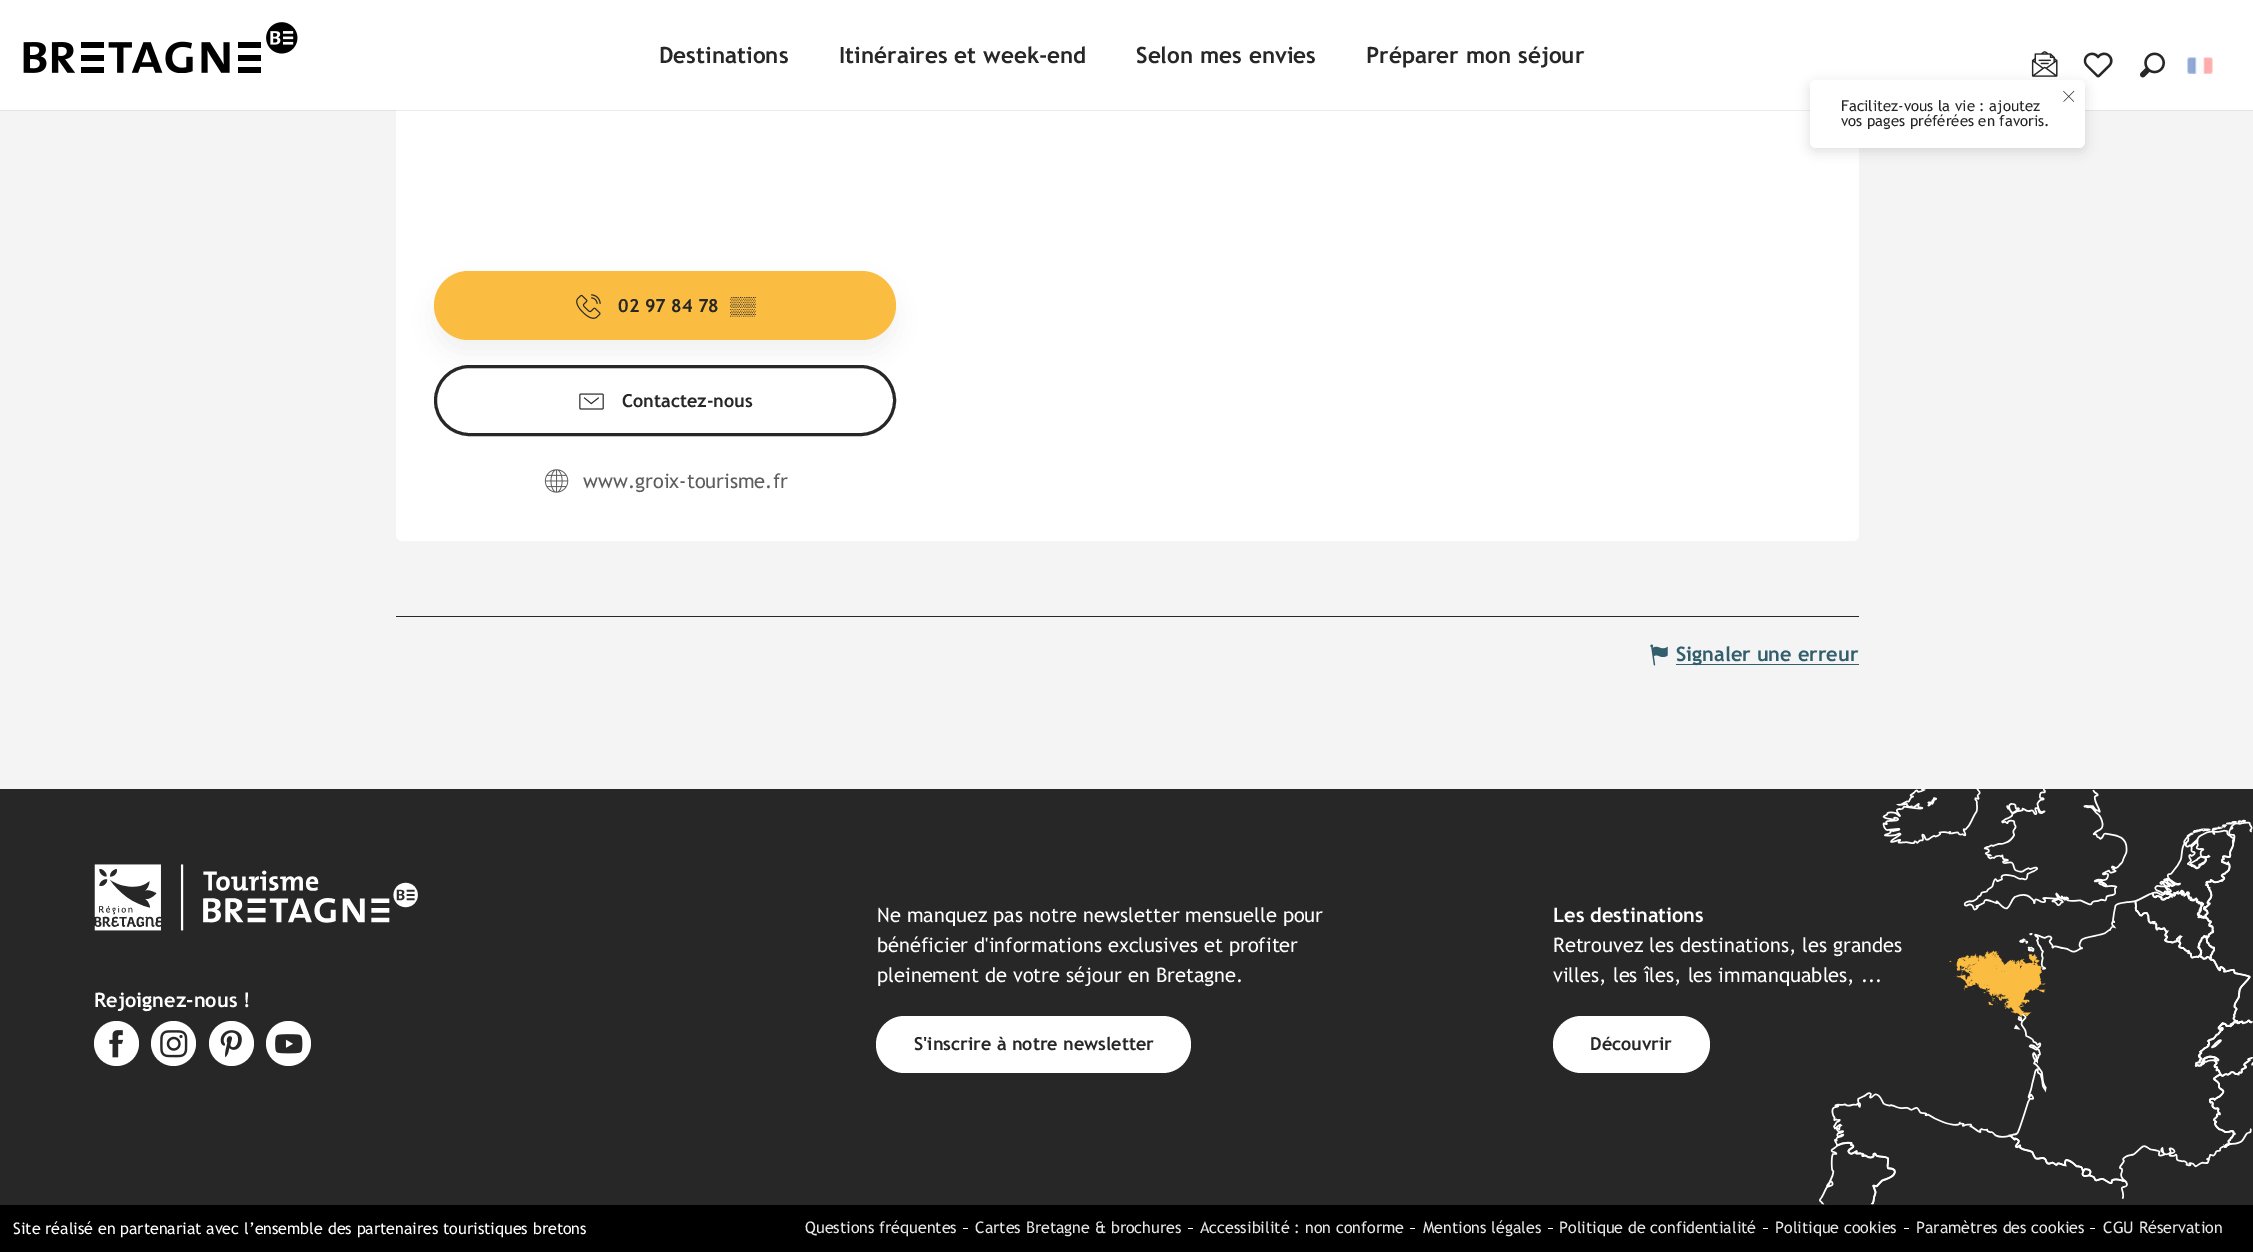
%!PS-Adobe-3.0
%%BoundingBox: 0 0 2253 1252
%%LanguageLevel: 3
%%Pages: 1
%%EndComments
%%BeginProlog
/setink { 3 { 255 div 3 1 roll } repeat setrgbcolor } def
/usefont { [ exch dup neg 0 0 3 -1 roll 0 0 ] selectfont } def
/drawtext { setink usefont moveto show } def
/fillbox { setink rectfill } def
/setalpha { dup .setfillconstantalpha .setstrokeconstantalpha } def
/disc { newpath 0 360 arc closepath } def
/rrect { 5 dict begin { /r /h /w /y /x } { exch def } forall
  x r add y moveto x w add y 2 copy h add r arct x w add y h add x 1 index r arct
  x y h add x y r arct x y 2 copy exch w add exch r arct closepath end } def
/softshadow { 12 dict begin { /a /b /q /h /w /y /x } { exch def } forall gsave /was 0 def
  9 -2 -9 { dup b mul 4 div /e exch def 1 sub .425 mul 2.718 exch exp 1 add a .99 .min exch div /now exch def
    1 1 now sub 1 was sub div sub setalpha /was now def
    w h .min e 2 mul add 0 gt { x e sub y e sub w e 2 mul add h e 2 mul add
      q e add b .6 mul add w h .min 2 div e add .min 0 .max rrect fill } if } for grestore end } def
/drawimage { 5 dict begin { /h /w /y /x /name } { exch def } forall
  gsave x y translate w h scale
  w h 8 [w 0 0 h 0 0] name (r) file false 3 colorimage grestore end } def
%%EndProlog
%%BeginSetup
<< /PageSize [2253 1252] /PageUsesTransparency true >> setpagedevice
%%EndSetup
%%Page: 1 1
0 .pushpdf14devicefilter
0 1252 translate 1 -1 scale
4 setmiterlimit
0 0 2253 1252 244 244 244 fillbox
0 110 2253 1 227 227 227 fillbox
255 255 255 setink
396 -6 1463 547 6 rrect fill
0 0 2253 110 255 255 255 fillbox
(assets/img1.rgb) 23 22 275 51 drawimage
(Destinations) 659 63 /TrebuchetMS-Bold 22.5 39 39 39 drawtext
(Itinéraires et week-end) 839 63 /TrebuchetMS-Bold 22.5 39 39 39 drawtext
(Selon mes envies) 1136 63 /TrebuchetMS-Bold 22.5 39 39 39 drawtext
(Préparer mon séjour) 1366 63 /TrebuchetMS-Bold 22.5 39 39 39 drawtext
(assets/img2.rgb) 2031 51 27 26 drawimage
396 110 1414 1 237 237 237 fillbox
39 39 39 setink
1810 84 275 67 6 6 0.15 softshadow
(assets/img3.rgb) 2083 52 30 26 drawimage
(assets/img4.rgb) 2140 52 25 26 drawimage
(assets/img5.rgb) 2187 57 26 17 drawimage
255 255 255 setink
1810 80 275 68 6 rrect fill
(assets/img6.rgb) 2063 90 12 12 drawimage
(Facilitez-vous la vie : ajoutez) 1841 111 /TrebuchetMS-Regular 15 39 39 39 drawtext
(vos pages préférées en favoris.) 1841 126 /TrebuchetMS-Regular 15 39 39 39 drawtext
3 setlinewidth
435.5 366.5 459 68 34 rrect stroke
0 0 0 setink
434 284 462 69 34.5 12.5 0.06 softshadow
251 188 66 setink
434 271 462 69 34.5 rrect fill
(assets/img7.rgb) 576 294 25 25 drawimage
(02 97 84 78) 618 312 /TrebuchetMS-Bold 18 39 39 39 drawtext
(▒▒) 730 312 /LiberationSans-Bold 18 39 39 39 drawtext
(assets/img8.rgb) 579 393 25 17 drawimage
(Contactez-nous) 622 407 /TrebuchetMS-Bold 18 39 39 39 drawtext
(assets/img9.rgb) 544 469 25 24 drawimage
(www.groix-tourisme.fr) 583 488 /TrebuchetMS-Regular 20 93 93 93 drawtext
396 616 1463 1 39 39 39 fillbox
(assets/img10.rgb) 1650 644 18 22 drawimage
1676 664 183 1 50 94 110 fillbox
(Signaler une erreur) 1676 661 /TrebuchetMS-Bold 20 50 94 110 drawtext
0 789 2253 416 39 39 39 fillbox
(assets/img11.rgb) 1819 788 434 417 drawimage
(assets/img12.rgb) 94 864 324 67 drawimage
(Rejoignez-nous !) 94 1007 /TrebuchetMS-Bold 20 255 255 255 drawtext
116.5 1043.5 22.5 disc fill
(assets/img13.rgb) 109 1030 15 28 drawimage
173.5 1043.5 22.5 disc fill
(assets/img14.rgb) 160 1030 28 28 drawimage
231.5 1043.5 22.5 disc fill
(assets/img15.rgb) 220 1030 22 28 drawimage
288.5 1043.5 22.5 disc fill
(assets/img16.rgb) 275 1034 28 20 drawimage
(Ne manquez pas notre newsletter mensuelle pour) 877 922 /TrebuchetMS-Regular 20 255 255 255 drawtext
(bénéficier d'informations exclusives et profiter) 877 952 /TrebuchetMS-Regular 20 255 255 255 drawtext
(pleinement de votre séjour en Bretagne.) 877 982 /TrebuchetMS-Regular 20 255 255 255 drawtext
876 1016 315 57 28.5 rrect fill
(S'inscrire à notre newsletter) 914 1050 /TrebuchetMS-Bold 18 39 39 39 drawtext
(Les destinations) 1553 922 /TrebuchetMS-Bold 20 255 255 255 drawtext
(Retrouvez les destinations, les grandes) 1553 952 /TrebuchetMS-Regular 20 255 255 255 drawtext
(villes, les îles, les immanquables, ...) 1553 982 /TrebuchetMS-Regular 20 255 255 255 drawtext
1553 1016 157 57 28.5 rrect fill
(Découvrir) 1590 1050 /TrebuchetMS-Bold 18 39 39 39 drawtext
0 1205 2253 47 0 0 0 fillbox
(Site réalisé en partenariat avec l’ensemble des partenaires touristiques bretons) 13 1234 /TrebuchetMS-Regular 16 255 255 255 drawtext
(Questions fréquentes) 805 1233 /TrebuchetMS-Regular 16 230 230 230 drawtext
963 1228 5 1 255 255 255 fillbox
(Cartes Bretagne & brochures) 975 1233 /TrebuchetMS-Regular 16 230 230 230 drawtext
1188 1228 5 1 255 255 255 fillbox
(Accessibilité : non conforme) 1200 1233 /TrebuchetMS-Regular 16 230 230 230 drawtext
1410 1228 5 1 255 255 255 fillbox
(Mentions légales) 1423 1233 /TrebuchetMS-Regular 16 230 230 230 drawtext
1548 1228 5 1 255 255 255 fillbox
(Politique de confidentialité) 1559 1233 /TrebuchetMS-Regular 16 230 230 230 drawtext
1763 1228 5 1 255 255 255 fillbox
(Politique cookies) 1775 1233 /TrebuchetMS-Regular 16 230 230 230 drawtext
1904 1228 5 1 255 255 255 fillbox
(Paramètres des cookies) 1916 1233 /TrebuchetMS-Regular 16 230 230 230 drawtext
2090 1228 5 1 255 255 255 fillbox
(CGU Réservation) 2103 1233 /TrebuchetMS-Regular 16 230 230 230 drawtext
.poppdf14devicefilter showpage
%%EOF
